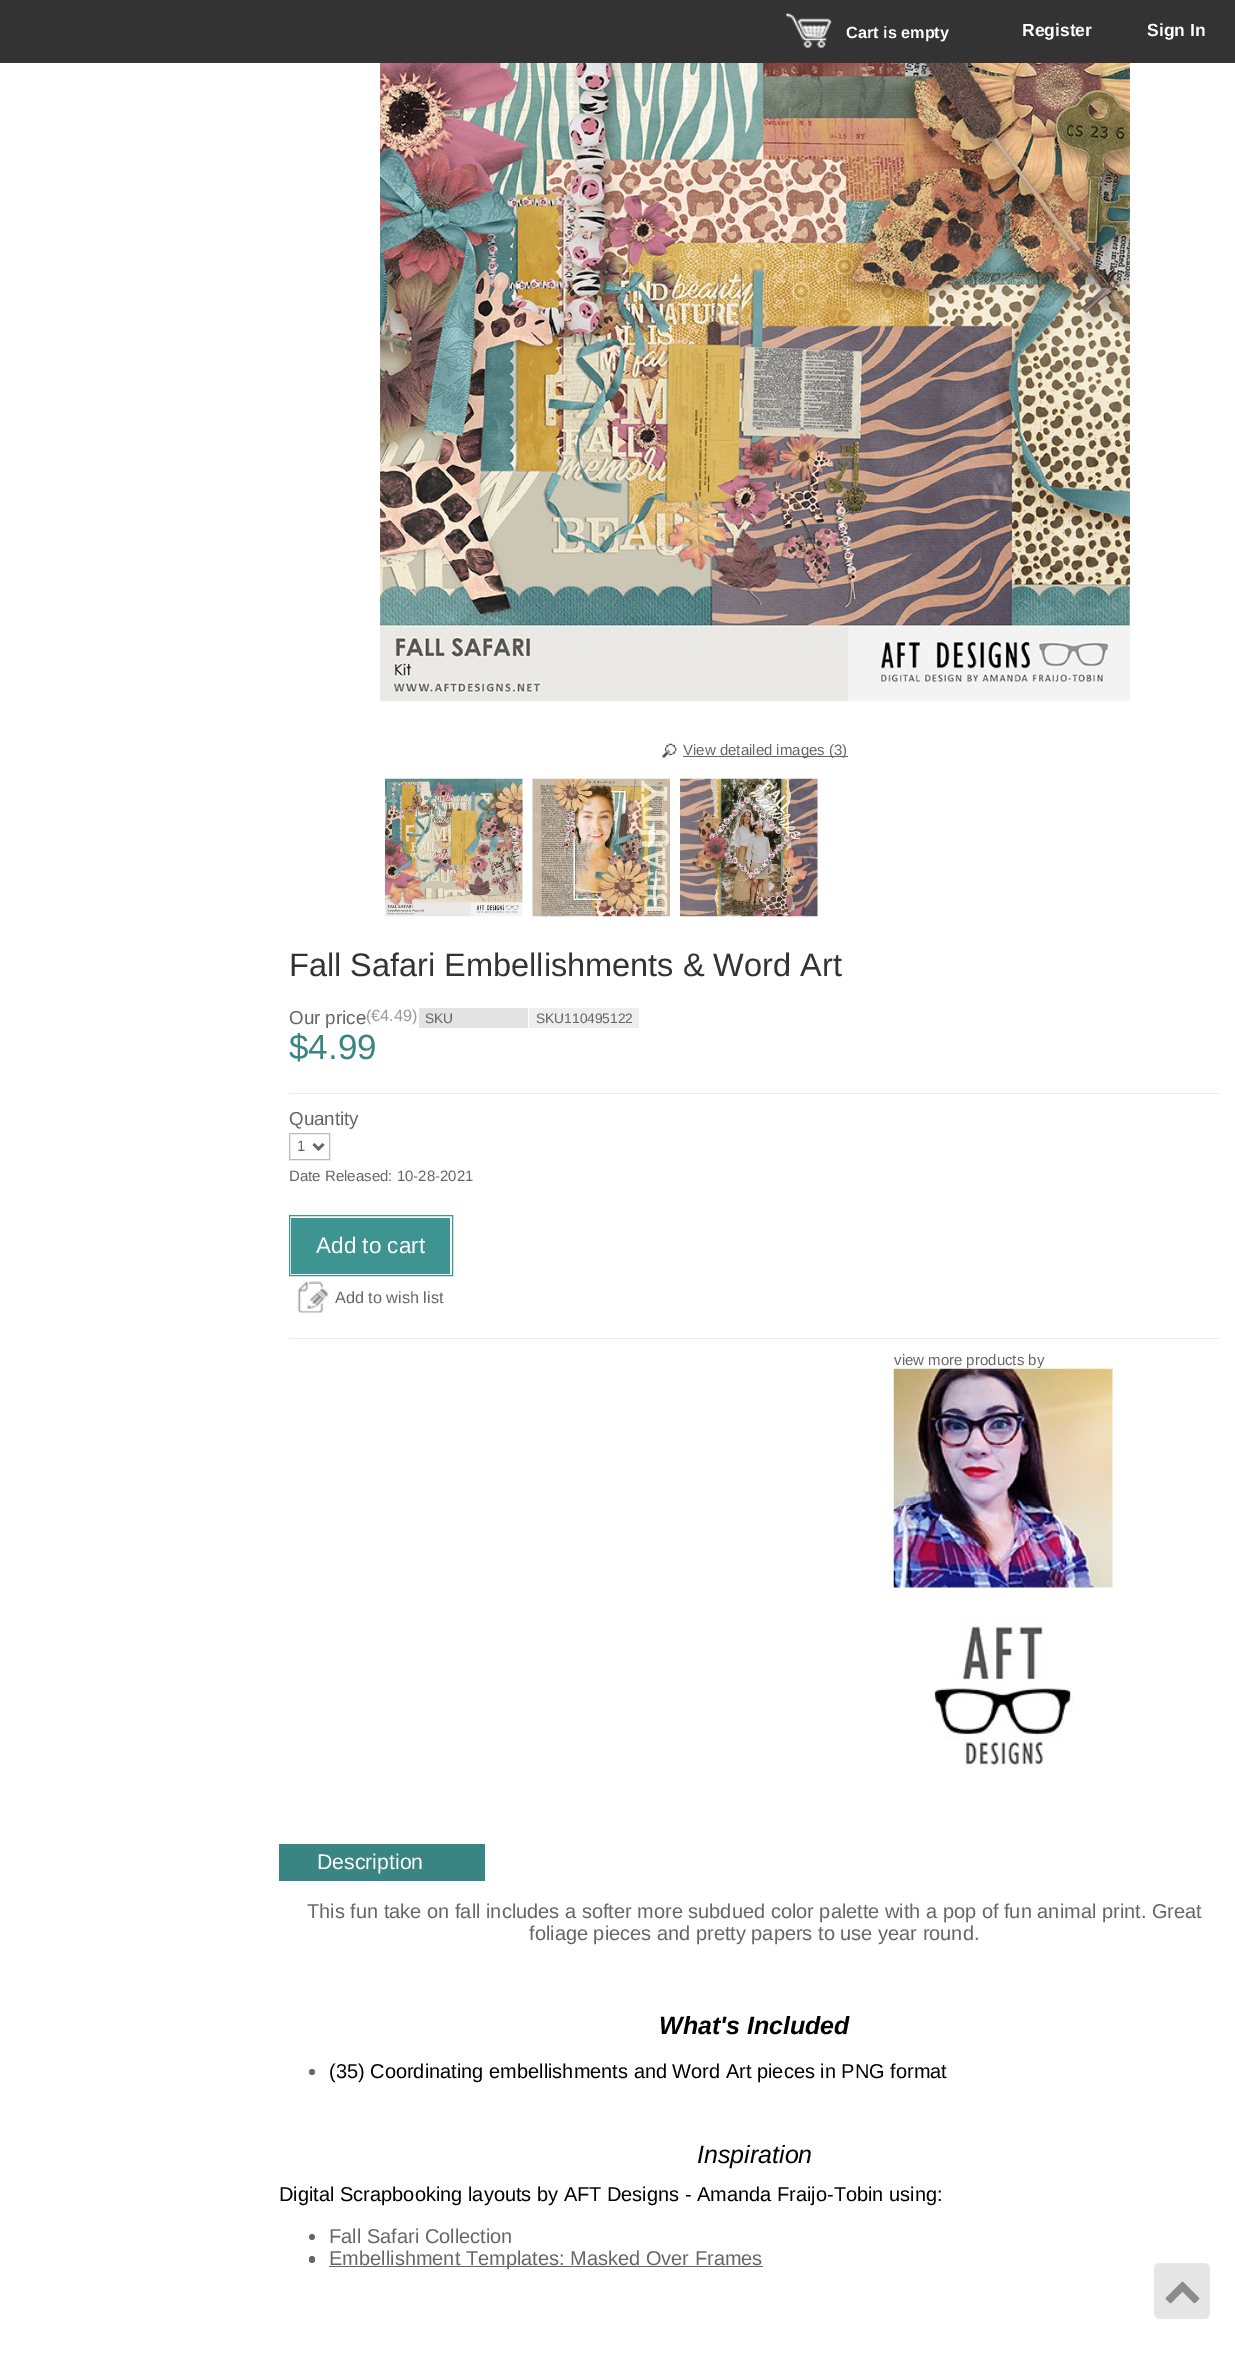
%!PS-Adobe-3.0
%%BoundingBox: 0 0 1235 2375
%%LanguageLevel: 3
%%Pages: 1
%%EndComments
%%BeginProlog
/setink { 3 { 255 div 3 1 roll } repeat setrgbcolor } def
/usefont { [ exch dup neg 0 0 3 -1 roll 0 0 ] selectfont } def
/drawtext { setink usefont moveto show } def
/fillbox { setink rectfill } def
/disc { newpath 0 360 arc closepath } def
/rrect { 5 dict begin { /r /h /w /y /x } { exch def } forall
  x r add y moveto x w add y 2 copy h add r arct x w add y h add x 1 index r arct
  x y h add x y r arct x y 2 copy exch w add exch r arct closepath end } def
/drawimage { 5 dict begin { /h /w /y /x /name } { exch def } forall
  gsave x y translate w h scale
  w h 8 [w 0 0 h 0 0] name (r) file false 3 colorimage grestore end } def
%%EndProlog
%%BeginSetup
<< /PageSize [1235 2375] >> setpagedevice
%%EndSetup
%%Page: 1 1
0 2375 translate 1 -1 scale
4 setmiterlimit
0 0 1235 2375 255 255 255 fillbox
0 0 1235 63 51 51 51 fillbox
(assets/img1.rgb) 786 13 46 35 drawimage
(Cart is empty) 846 38 /LiberationSans-Bold 16.25 255 255 255 drawtext
(Register) 1022 36 /LiberationSans-Bold 17.5 255 255 255 drawtext
(Sign In) 1147 36 /LiberationSans-Bold 17.5 255 255 255 drawtext
(assets/img2.rgb) 380 63 750 639 drawimage
(assets/img3.rgb) 662 743 15 15 drawimage
683 756 165 1 102 102 102 fillbox
(View detailed images \(3\)) 683 755 /LiberationSans-Regular 15 102 102 102 drawtext
(assets/img4.rgb) 385 778 138 139 drawimage
(assets/img5.rgb) 532 778 138 139 drawimage
(assets/img6.rgb) 680 778 138 139 drawimage
(Fall Safari Embellishments & Word Art) 289 976 /LiberationSans-Regular 32.5 51 51 51 drawtext
(Our price) 289 1024 /LiberationSans-Regular 18.75 102 102 102 drawtext
(\(€4.49\)) 366 1021 /LiberationSans-Regular 16.25 153 153 153 drawtext
($4.99) 289 1059 /LiberationSans-Regular 35 56 133 131 drawtext
419 1008 109 20 227 227 227 fillbox
(SKU) 425 1023 /LiberationSans-Regular 13.75 102 102 102 drawtext
529 1008 110 20 238 238 238 fillbox
(SKU110495122) 536 1023 /LiberationSans-Regular 13.75 102 102 102 drawtext
289 1093 931 1 236 236 236 fillbox
(Quantity) 289 1125 /LiberationSans-Regular 18.75 102 102 102 drawtext
187 187 187 setink
289.5 1133.5 40 26 rectstroke
102 102 102 setink
2.5 setlinewidth
313.5 1144 moveto 318.5 1149 lineto 323.5 1144 lineto stroke
(1) 297 1151 /LiberationSans-Regular 15 102 102 102 drawtext
(Date Released: 10-28-2021) 289 1181 /LiberationSans-Regular 15 102 102 102 drawtext
62 148 145 setink
1 setlinewidth
289.5 1215.5 163 60 rectstroke
291 1218 159 56 62 148 145 fillbox
(Add to cart) 316 1253 /LiberationSans-Regular 22.5 255 255 255 drawtext
(assets/img7.rgb) 297 1281 32 32 drawimage
(Add to wish list) 335 1303 /LiberationSans-Regular 16.25 102 102 102 drawtext
289 1338 931 1 236 236 236 fillbox
(view more products by) 894 1365 /LiberationSans-Regular 15 102 102 102 drawtext
(assets/img8.rgb) 893 1368 220 401 drawimage
279 1844 206 37 56 133 131 fillbox
(Description) 317 1869 /LiberationSans-Regular 21.25 255 255 255 drawtext
(This fun take on fall includes a softer more subdued color palette with a pop of fun animal print. Great) 307 1918 /LiberationSans-Regular 20 102 102 102 drawtext
(foliage pieces and pretty papers to use year round.) 529 1940 /LiberationSans-Regular 20 102 102 102 drawtext
(What's Included) 659 2034 /LiberationSans-BoldItalic 25 0 0 0 drawtext
102 102 102 setink
312 2072 3 disc fill
(\(35\) Coordinating embellishments and Word Art pieces in PNG format) 329 2078 /LiberationSans-Regular 20 0 0 0 drawtext
(Inspiration) 697 2163 /LiberationSans-Italic 25 0 0 0 drawtext
(Digital Scrapbooking layouts by AFT Designs - Amanda Fraijo-Tobin using:) 279 2201 /LiberationSans-Regular 20 0 0 0 drawtext
102 102 102 setink
312 2237 3 disc fill
(Fall Safari Collection) 329 2243 /LiberationSans-Regular 20 102 102 102 drawtext
309 2256 6 7 3 rrect fill
329 2266 434 1 102 102 102 fillbox
(Embellishment Templates: Masked Over Frames) 329 2265 /LiberationSans-Regular 20 102 102 102 drawtext
230 230 230 setink
1154 2263 56 56 6 rrect fill
(assets/img9.rgb) 1165 2281 35 23 drawimage
showpage
%%EOF
